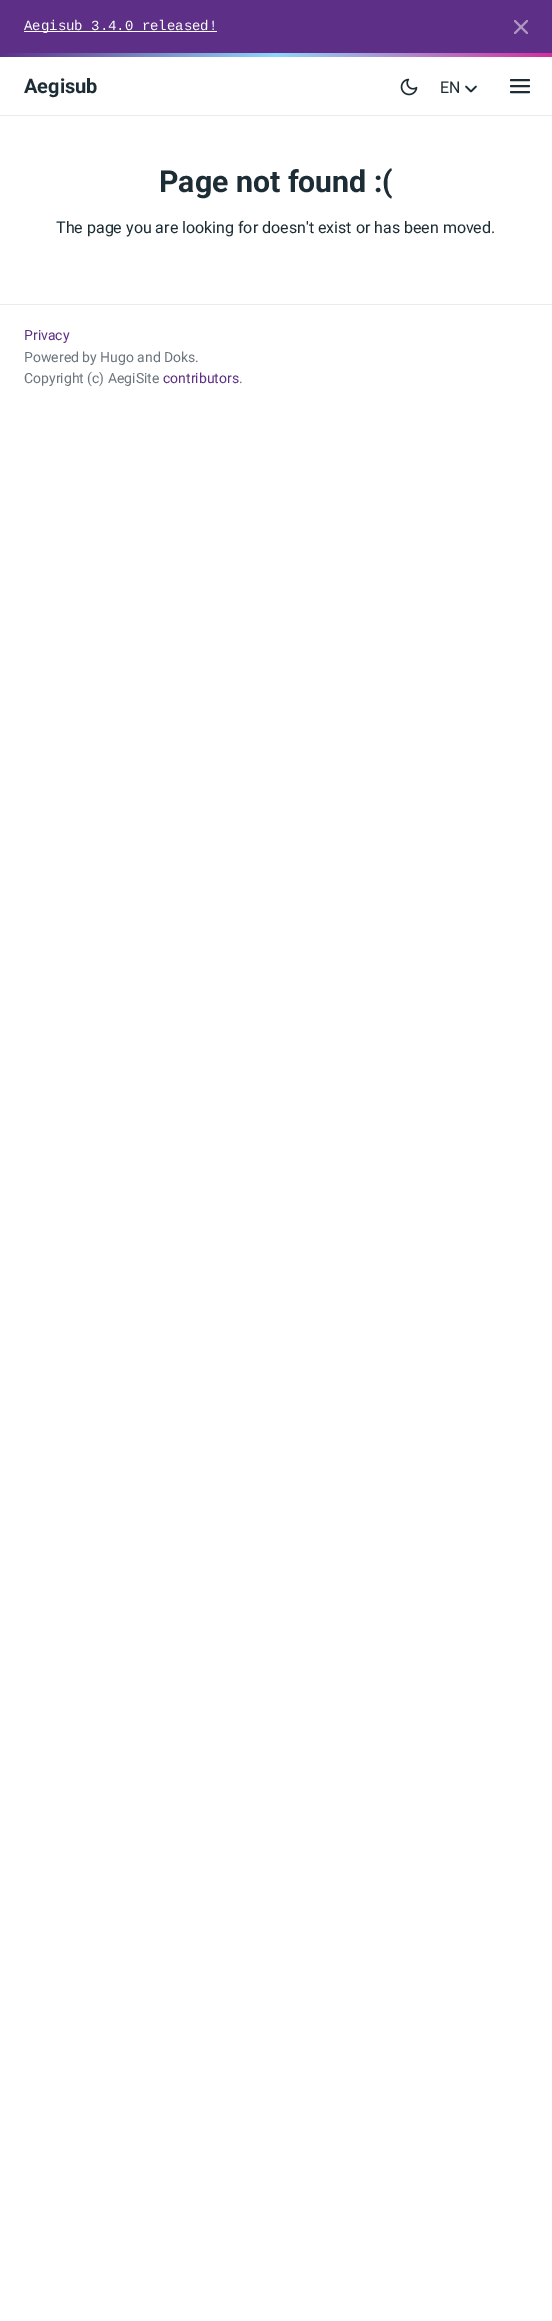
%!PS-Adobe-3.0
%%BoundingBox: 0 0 552 2321
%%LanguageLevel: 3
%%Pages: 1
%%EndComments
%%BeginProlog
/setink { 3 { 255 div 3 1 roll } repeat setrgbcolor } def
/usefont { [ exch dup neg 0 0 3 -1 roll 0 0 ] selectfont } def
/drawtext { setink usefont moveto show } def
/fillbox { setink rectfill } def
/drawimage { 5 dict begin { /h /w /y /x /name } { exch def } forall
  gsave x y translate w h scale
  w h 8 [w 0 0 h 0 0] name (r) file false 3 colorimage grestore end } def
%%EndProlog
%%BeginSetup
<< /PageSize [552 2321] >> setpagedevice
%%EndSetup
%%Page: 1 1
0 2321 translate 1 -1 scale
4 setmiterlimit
0 0 552 2321 255 255 255 fillbox
0 0 552 53 93 47 134 fillbox
24 31 193 1 255 255 255 fillbox
(Aegisub 3.4.0 released!) 24 30 /LiberationMono-Regular 14 255 255 255 drawtext
174 151 195 setink
2 setlinewidth
1 setlinecap
1 setlinejoin
527 21 moveto 515 33 lineto 515 21 moveto 527 33 lineto stroke
(assets/img1.rgb) 0 53 552 4 drawimage
0 115 552 1 233 236 239 fillbox
(Aegisub) 24 93 /Roboto-Bold 20 29 45 53 drawtext
(assets/img2.rgb) 400 78 18 18 drawimage
(EN) 440 93 /Roboto-Regular 16 29 45 53 drawtext
1.7 setlinewidth
466 86.5 moveto 471 91.5 lineto 476 86.5 lineto stroke
2 setlinewidth
511 86 moveto 529 86 lineto 511 80 moveto 529 80 lineto 511 92 moveto 529 92 lineto stroke
(Page not found :\() 159 192 /Roboto-Bold 30.25 29 45 53 drawtext
(The page you are looking for doesn't exist or has been moved.) 56 233 /Roboto-Regular 16 29 45 53 drawtext
0 304 552 1 233 236 239 fillbox
(Privacy) 24 340 /Roboto-Regular 14 93 47 134 drawtext
(Powered by Hugo and Doks.) 24 362 /Roboto-Regular 14 108 117 125 drawtext
(Copyright \(c\) AegiSite) 24 383 /Roboto-Regular 14 108 117 125 drawtext
(contributors) 163 383 /Roboto-Regular 14 93 47 134 drawtext
(.) 239 383 /Roboto-Regular 14 108 117 125 drawtext
showpage
%%EOF
